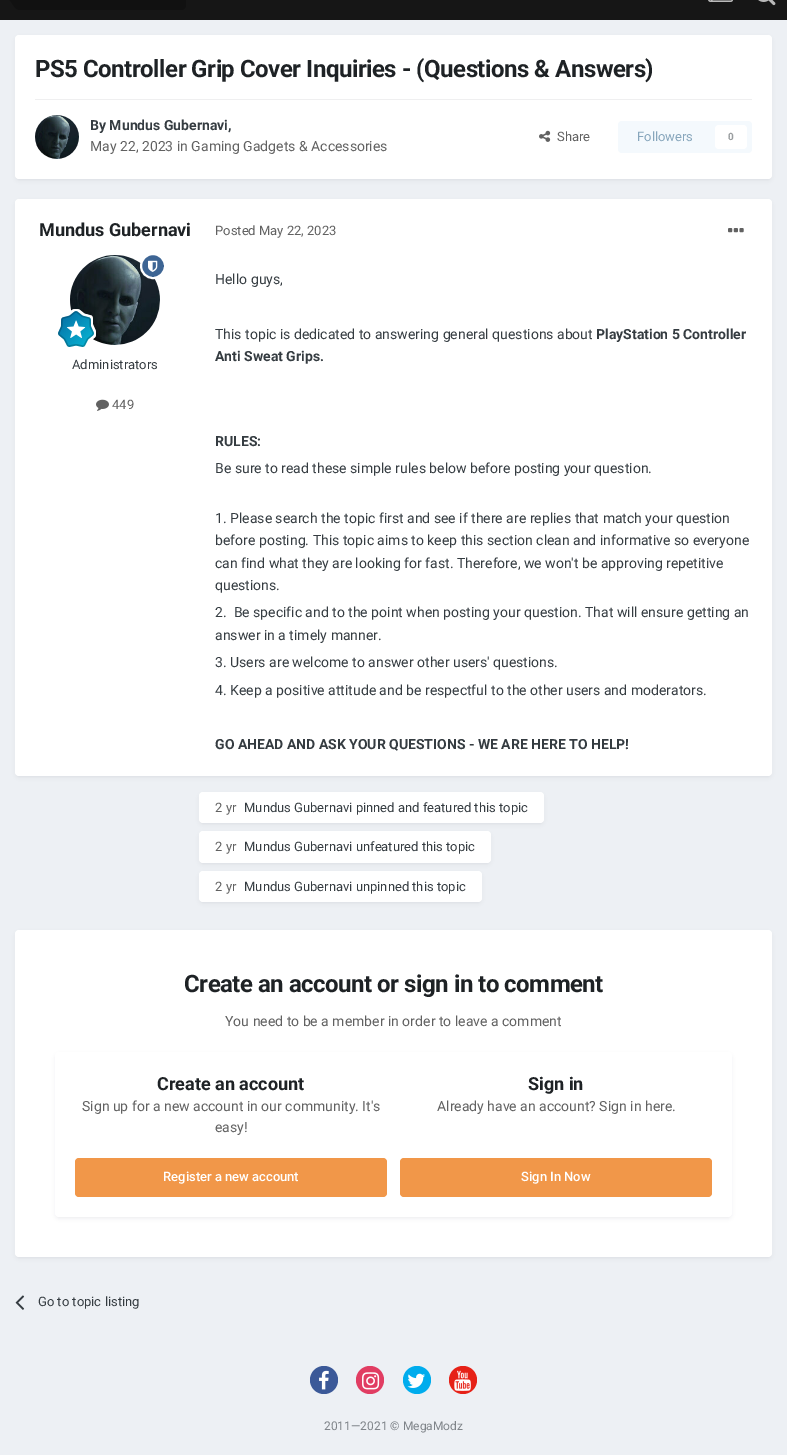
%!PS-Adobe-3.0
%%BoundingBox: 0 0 787 1455
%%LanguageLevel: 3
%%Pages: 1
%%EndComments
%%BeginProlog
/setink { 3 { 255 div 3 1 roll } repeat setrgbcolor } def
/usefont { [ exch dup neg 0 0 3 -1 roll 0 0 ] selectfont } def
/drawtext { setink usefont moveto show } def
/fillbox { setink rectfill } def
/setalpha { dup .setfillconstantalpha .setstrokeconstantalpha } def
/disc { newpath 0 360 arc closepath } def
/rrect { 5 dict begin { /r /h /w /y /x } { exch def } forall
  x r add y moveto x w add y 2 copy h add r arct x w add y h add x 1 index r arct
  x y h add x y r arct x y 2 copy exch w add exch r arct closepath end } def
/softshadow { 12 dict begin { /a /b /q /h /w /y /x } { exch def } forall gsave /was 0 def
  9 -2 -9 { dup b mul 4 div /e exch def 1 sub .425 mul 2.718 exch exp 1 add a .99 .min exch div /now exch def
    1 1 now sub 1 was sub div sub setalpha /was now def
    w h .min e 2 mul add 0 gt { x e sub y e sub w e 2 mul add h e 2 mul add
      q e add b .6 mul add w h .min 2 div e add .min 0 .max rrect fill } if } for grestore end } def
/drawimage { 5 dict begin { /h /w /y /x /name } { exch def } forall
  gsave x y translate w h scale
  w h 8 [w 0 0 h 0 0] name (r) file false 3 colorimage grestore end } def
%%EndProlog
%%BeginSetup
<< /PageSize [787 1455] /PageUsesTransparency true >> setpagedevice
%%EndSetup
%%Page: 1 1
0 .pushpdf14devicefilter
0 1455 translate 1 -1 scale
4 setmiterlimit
0 0 787 1455 237 240 244 fillbox
0 0 787 20 22 22 22 fillbox
17 17 17 setink
20 -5 moveto 181 -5 lineto 184 -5 186 -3 186 0 curveto 186 5 lineto 186 8 184 10 181 10 curveto 20 10 lineto closepath fill
20 -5 moveto 20 10 lineto 15.5 10 13.5 5.5 11 2 curveto 9.5 0 7 -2 7 -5 curveto closepath fill
(assets/img1.rgb) 708 0 25 2 drawimage
(assets/img2.rgb) 758 0 18 6 drawimage
45 55 72 setink
16 38 755 142 3 2 0.1 softshadow
255 255 255 setink
15 35 757 144 4 rrect fill
/Roboto-Bold 24 usefont
30 34 37 setink
35 77 moveto -0.48 0 (PS5 Controller Grip Cover Inquiries - \(Questions & Answers\)) ashow
35 99 717 1 239 239 240 fillbox
(assets/img3.rgb) 35 115 44 44 drawimage
(By Mundus Gubernavi,) 90 130 /Roboto-Bold 14 53 60 65 drawtext
(May 22, 2023 in Gaming Gadgets & Accessories) 90 151 /Roboto-Regular 14 97 97 97 drawtext
(assets/img4.rgb) 539 130 12 12 drawimage
(Share) 557 141 /Roboto-Regular 13 97 97 97 drawtext
244 249 253 setink
618 121 134 32 4 rrect fill
(Followers) 637 141 /Roboto-Regular 13 135 166 188 drawtext
255 255 255 setink
715 125 32 24 4 rrect fill
(0) 728 140 /Roboto-Bold 10 154 158 160 drawtext
45 55 72 setink
16 202 755 575 3 2 0.1 softshadow
255 255 255 setink
15 199 757 577 4 rrect fill
(Mundus Gubernavi) 39 236 /Roboto-Bold 18 30 34 37 drawtext
(assets/img6.rgb) 70 255 90 90 drawimage
61 101 148 setink
153 266 12 disc gsave fill grestore
255 255 255 setink
2 setlinewidth
stroke
(assets/img5.rgb) 148 260 10 12 drawimage
(assets/img7.rgb) 58 309 38 38 drawimage
(Administrators) 72 369 /Roboto-Regular 13 53 60 65 drawtext
(assets/img8.rgb) 96 399 13 12 drawimage
(449) 112 409 /Roboto-Regular 13 97 97 97 drawtext
(Posted May 22, 2023) 215 235 /Roboto-Regular 13 97 97 97 drawtext
(assets/img9.rgb) 728 228 16 5 drawimage
(Hello guys,) 215 284 /Roboto-Regular 14 53 60 65 drawtext
(This topic is dedicated to answering general questions about) 215 339 /Roboto-Regular 14 53 60 65 drawtext
(PlayStation 5 Controller) 596 339 /Roboto-Bold 14 53 60 65 drawtext
(Anti Sweat Grips.) 215 361 /Roboto-Bold 14 53 60 65 drawtext
(RULES:) 215 446 /Roboto-Bold 14 53 60 65 drawtext
(Be sure to read these simple rules below before posting your question.) 215 473 /Roboto-Regular 14 53 60 65 drawtext
(1. Please search the topic first and see if there are replies that match your question) 215 523 /Roboto-Regular 14 53 60 65 drawtext
(before posting. This topic aims to keep this section clean and informative so everyone) 215 545 /Roboto-Regular 14 53 60 65 drawtext
(can find what they are looking for fast. Therefore, we won't be approving repetitive) 215 568 /Roboto-Regular 14 53 60 65 drawtext
(questions.) 215 590 /Roboto-Regular 14 53 60 65 drawtext
(2.  Be specific and to the point when posting your question. That will ensure getting an) 215 617 /Roboto-Regular 14 53 60 65 drawtext
(answer in a timely manner.) 215 640 /Roboto-Regular 14 53 60 65 drawtext
(3. Users are welcome to answer other users' questions.) 215 667 /Roboto-Regular 14 53 60 65 drawtext
(4. Keep a positive attitude and be respectful to the other users and moderators.) 215 695 /Roboto-Regular 14 53 60 65 drawtext
(GO AHEAD AND ASK YOUR QUESTIONS - WE ARE HERE TO HELP!) 215 749 /Roboto-Bold 14 53 60 65 drawtext
45 55 72 setink
200 795 343 29 3 2 0.1 softshadow
255 255 255 setink
199 792 345 31 4 rrect fill
(2 yr) 215 812 /Roboto-Regular 13 97 97 97 drawtext
(Mundus Gubernavi pinned and featured this topic) 244 812 /Roboto-Regular 13 53 60 65 drawtext
45 55 72 setink
200 834 290 30 3 2 0.1 softshadow
255 255 255 setink
199 831 292 32 4 rrect fill
(2 yr) 215 851 /Roboto-Regular 13 97 97 97 drawtext
(Mundus Gubernavi unfeatured this topic) 244 851 /Roboto-Regular 13 53 60 65 drawtext
45 55 72 setink
200 874 281 29 3 2 0.1 softshadow
255 255 255 setink
199 871 283 31 4 rrect fill
(2 yr) 215 891 /Roboto-Regular 13 97 97 97 drawtext
(Mundus Gubernavi unpinned this topic) 244 891 /Roboto-Regular 13 53 60 65 drawtext
45 55 72 setink
16 933 755 325 3 2 0.1 softshadow
255 255 255 setink
15 930 757 327 4 rrect fill
/Roboto-Bold 24 usefont
30 34 37 setink
184 992 moveto -0.48 0 (Create an account or sign in to comment) ashow
(You need to be a member in order to leave a comment) 225 1026 /Roboto-Regular 14 97 97 97 drawtext
45 55 72 setink
56 1055 675 163 3 2 0.1 softshadow
255 255 255 setink
55 1052 677 165 4 rrect fill
(Create an account) 157 1090 /Roboto-Bold 18 30 34 37 drawtext
(Sign up for a new account in our community. It's) 82 1111 /Roboto-Regular 14 97 97 97 drawtext
(easy!) 215 1132 /Roboto-Regular 14 97 97 97 drawtext
241 151 73 setink
75 1158 312 39 4 rrect fill
(Register a new account) 163 1181 /Roboto-Medium 13 255 255 255 drawtext
(Sign in) 528 1090 /Roboto-Bold 18 30 34 37 drawtext
(Already have an account? Sign in here.) 437 1111 /Roboto-Regular 14 97 97 97 drawtext
241 151 73 setink
400 1158 312 39 4 rrect fill
(Sign In Now) 521 1181 /Roboto-Medium 13 255 255 255 drawtext
(assets/img10.rgb) 15 1295 10 15 drawimage
(Go to topic listing) 38 1306 /Roboto-Regular 13 53 60 65 drawtext
59 89 152 setink
324 1380 14 disc fill
(assets/img11.rgb) 319 1370 10 20 drawimage
225 61 98 setink
370 1380 14 disc fill
(assets/img12.rgb) 362 1372 18 18 drawimage
0 172 237 setink
417 1380 14 disc fill
(assets/img13.rgb) 407 1373 18 15 drawimage
230 33 23 setink
463 1380 14 disc fill
(assets/img14.rgb) 454 1370 17 21 drawimage
(2011—2021 © MegaModz) 324 1430 /Roboto-Regular 12 127 132 137 drawtext
.poppdf14devicefilter showpage
%%EOF
